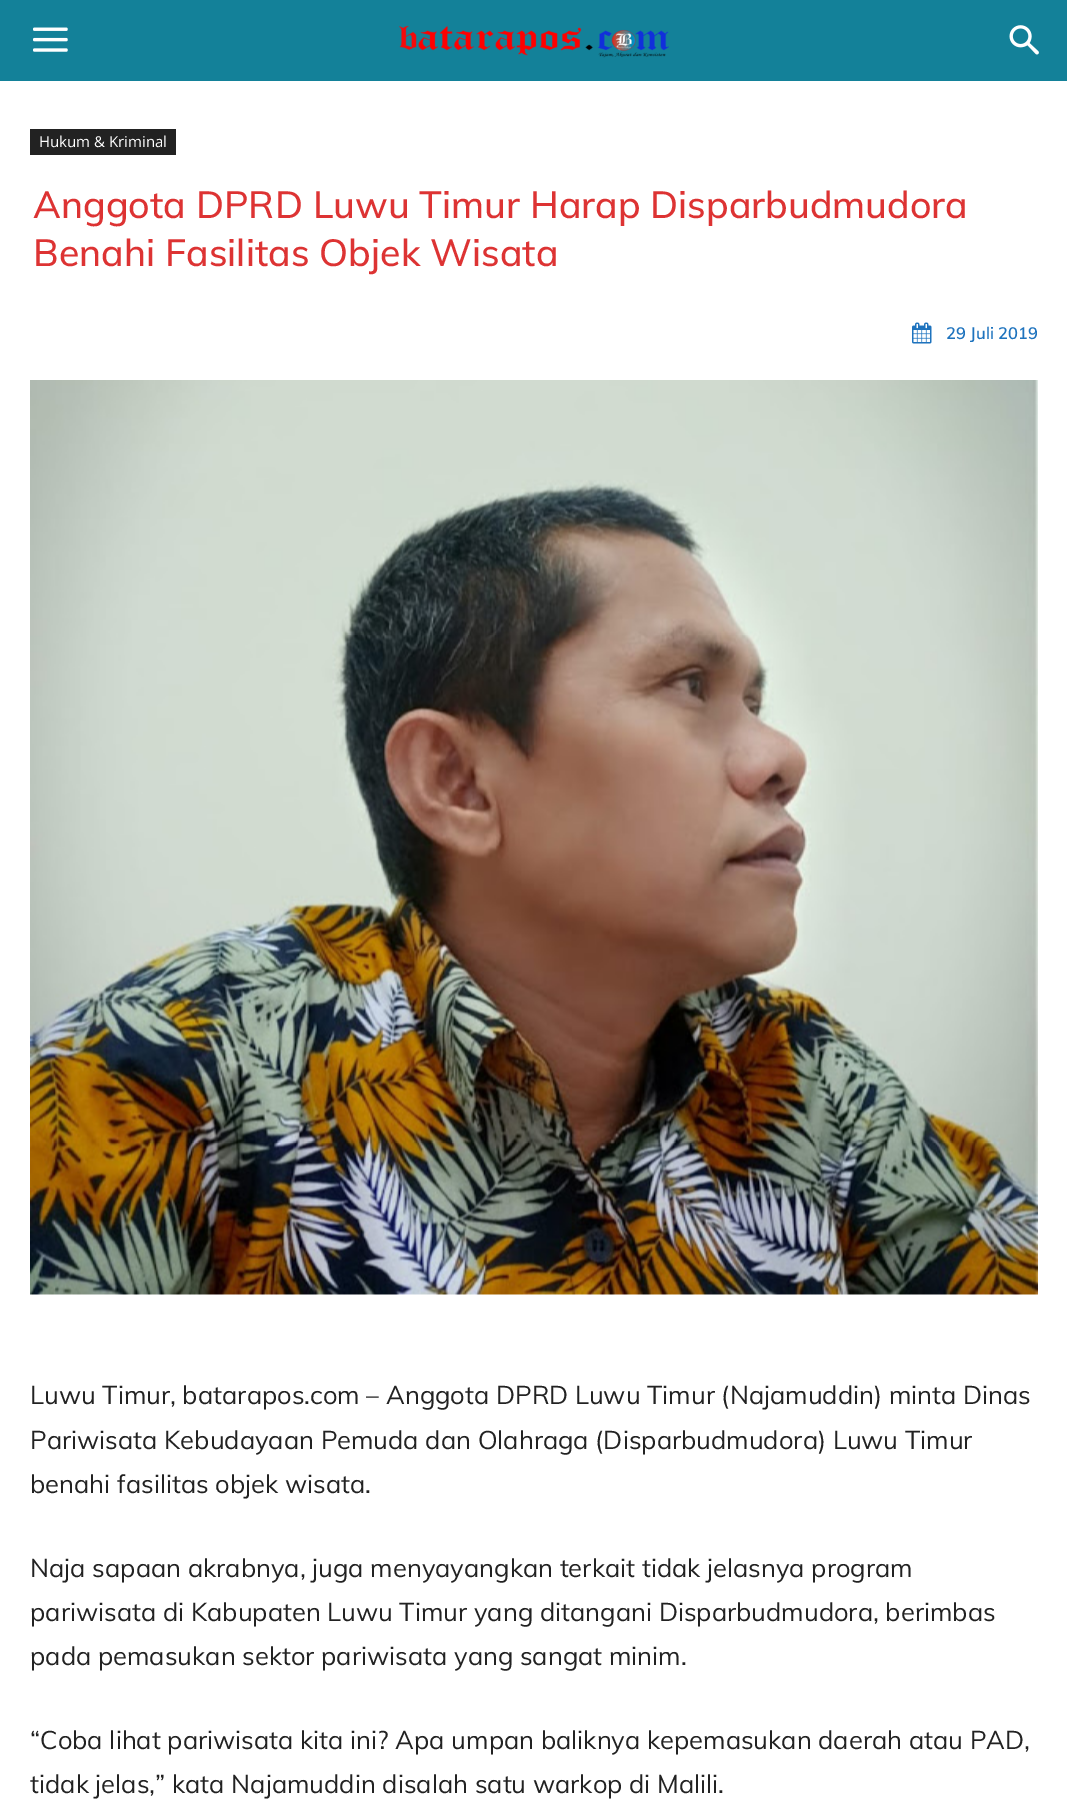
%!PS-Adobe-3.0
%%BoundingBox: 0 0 1067 1806
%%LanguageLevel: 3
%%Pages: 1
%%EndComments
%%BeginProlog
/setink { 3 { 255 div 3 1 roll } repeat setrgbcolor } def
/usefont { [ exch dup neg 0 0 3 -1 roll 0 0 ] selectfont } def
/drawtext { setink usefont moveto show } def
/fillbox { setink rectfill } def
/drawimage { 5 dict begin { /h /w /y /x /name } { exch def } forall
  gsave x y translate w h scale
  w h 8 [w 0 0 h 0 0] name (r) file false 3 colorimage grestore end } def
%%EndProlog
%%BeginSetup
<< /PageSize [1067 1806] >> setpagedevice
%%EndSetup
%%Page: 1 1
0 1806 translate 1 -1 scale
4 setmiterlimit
0 0 1067 1806 255 255 255 fillbox
0 0 1067 81 19 129 153 fillbox
(assets/img1.rgb) 33 27 35 25 drawimage
(assets/img2.rgb) 399 25 270 33 drawimage
(assets/img3.rgb) 1009 25 30 30 drawimage
30 129 146 26 34 34 34 fillbox
(Hukum & Kriminal) 39 147 /OpenSans-Regular 15 255 255 255 drawtext
(Anggota DPRD Luwu Timur Harap Disparbudmudora) 33 218 /Muli-Medium 37.5 221 51 51 drawtext
(Benahi Fasilitas Objek Wisata) 33 266 /Muli-Medium 37.5 221 51 51 drawtext
(assets/img4.rgb) 912 322 20 22 drawimage
(29 Juli 2019) 946 339 /Muli-SemiBold 16.5 30 115 190 drawtext
(assets/img5.rgb) 30 380 1008 915 drawimage
(Luwu Timur, batarapos.com – Anggota DPRD Luwu Timur \(Najamuddin\) minta Dinas) 30 1404 /Muli-Regular 25.5 34 34 34 drawtext
(Pariwisata Kebudayaan Pemuda dan Olahraga \(Disparbudmudora\) Luwu Timur) 30 1449 /Muli-Regular 25.5 34 34 34 drawtext
(benahi fasilitas objek wisata.) 30 1493 /Muli-Regular 25.5 34 34 34 drawtext
(Naja sapaan akrabnya, juga menyayangkan terkait tidak jelasnya program) 30 1577 /Muli-Regular 25.5 34 34 34 drawtext
(pariwisata di Kabupaten Luwu Timur yang ditangani Disparbudmudora, berimbas) 30 1621 /Muli-Regular 25.5 34 34 34 drawtext
(pada pemasukan sektor pariwisata yang sangat minim.) 30 1665 /Muli-Regular 25.5 34 34 34 drawtext
(“Coba lihat pariwisata kita ini? Apa umpan baliknya kepemasukan daerah atau PAD,) 30 1749 /Muli-Regular 25.5 34 34 34 drawtext
(tidak jelas,” kata Najamuddin disalah satu warkop di Malili.) 30 1793 /Muli-Regular 25.5 34 34 34 drawtext
showpage
%%EOF
